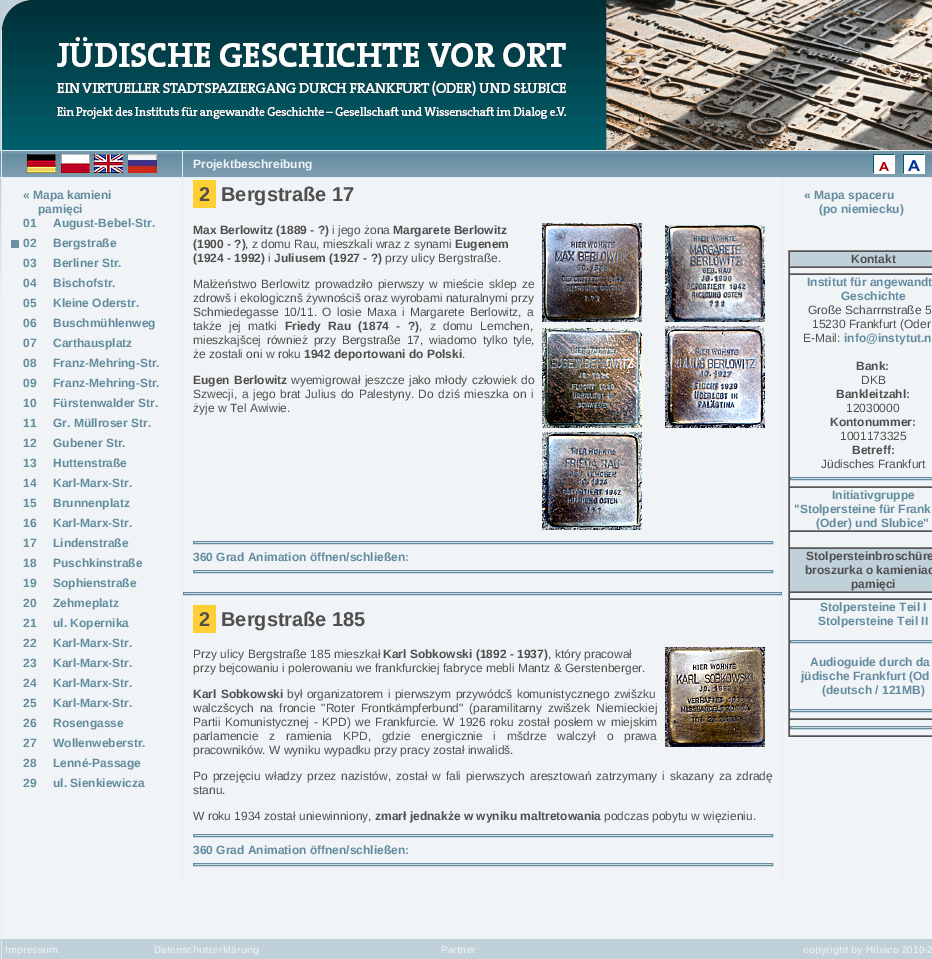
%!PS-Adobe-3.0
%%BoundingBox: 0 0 932 959
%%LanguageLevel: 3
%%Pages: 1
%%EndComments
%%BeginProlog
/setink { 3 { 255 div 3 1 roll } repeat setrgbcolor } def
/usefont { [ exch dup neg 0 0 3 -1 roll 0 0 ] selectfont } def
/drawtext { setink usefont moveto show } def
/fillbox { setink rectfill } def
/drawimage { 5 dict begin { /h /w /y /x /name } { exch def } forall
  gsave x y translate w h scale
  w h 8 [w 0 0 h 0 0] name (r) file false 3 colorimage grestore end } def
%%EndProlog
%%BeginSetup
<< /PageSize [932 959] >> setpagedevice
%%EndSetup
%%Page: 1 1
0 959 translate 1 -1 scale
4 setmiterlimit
0 0 932 959 240 244 246 fillbox
(assets/img1.rgb) 0 0 1 290 drawimage
0 150 1 1 229 236 239 fillbox
(assets/img2.rgb) 0 151 1 26 drawimage
0 177 1 1 229 236 239 fillbox
0 939 1 20 192 209 217 fillbox
1 30 1 929 229 236 239 fillbox
1 0 1 30 191 208 216 fillbox
2 0 559 116 192 209 217 fillbox
(assets/img3.rgb) 2 0 930 150 drawimage
2 150 930 1 229 236 239 fillbox
(assets/img4.rgb) 2 151 930 26 drawimage
(assets/img5.rgb) 27 154 29 19 drawimage
(assets/img6.rgb) 61 154 29 19 drawimage
(assets/img7.rgb) 94 154 29 19 drawimage
(assets/img8.rgb) 128 154 29 19 drawimage
182 151 1 26 229 236 239 fillbox
(Projektbeschreibung) 193 168 /LiberationSans-Bold 12 240 244 246 drawtext
(assets/img9.rgb) 873 154 22 20 drawimage
(assets/img10.rgb) 903 154 22 20 drawimage
2 177 930 1 229 236 239 fillbox
(« Mapa kamieni) 23 199 /LiberationSans-Bold 12 100 140 160 drawtext
(pamięci) 38 213 /LiberationSans-Bold 12 100 140 160 drawtext
(01) 23 227 /LiberationSans-Bold 12 100 140 160 drawtext
(August-Bebel-Str.) 53 227 /LiberationSans-Bold 12 100 140 160 drawtext
11 240 8 8 108 145 165 fillbox
(02) 23 247 /LiberationSans-Bold 12 100 140 160 drawtext
(Bergstraße) 53 247 /LiberationSans-Bold 12 100 140 160 drawtext
(03) 23 267 /LiberationSans-Bold 12 100 140 160 drawtext
(Berliner Str.) 53 267 /LiberationSans-Bold 12 100 140 160 drawtext
(04) 23 287 /LiberationSans-Bold 12 100 140 160 drawtext
(Bischofstr.) 53 287 /LiberationSans-Bold 12 100 140 160 drawtext
(05) 23 307 /LiberationSans-Bold 12 100 140 160 drawtext
(Kleine Oderstr.) 53 307 /LiberationSans-Bold 12 100 140 160 drawtext
(06) 23 327 /LiberationSans-Bold 12 100 140 160 drawtext
(Buschmühlenweg) 53 327 /LiberationSans-Bold 12 100 140 160 drawtext
(07) 23 347 /LiberationSans-Bold 12 100 140 160 drawtext
(Carthausplatz) 53 347 /LiberationSans-Bold 12 100 140 160 drawtext
(08) 23 367 /LiberationSans-Bold 12 100 140 160 drawtext
(Franz-Mehring-Str.) 53 367 /LiberationSans-Bold 12 100 140 160 drawtext
(09) 23 387 /LiberationSans-Bold 12 100 140 160 drawtext
(Franz-Mehring-Str.) 53 387 /LiberationSans-Bold 12 100 140 160 drawtext
(10) 23 407 /LiberationSans-Bold 12 100 140 160 drawtext
(Fürstenwalder Str.) 53 407 /LiberationSans-Bold 12 100 140 160 drawtext
(11) 23 427 /LiberationSans-Bold 12 100 140 160 drawtext
(Gr. Müllroser Str.) 53 427 /LiberationSans-Bold 12 100 140 160 drawtext
(12) 23 447 /LiberationSans-Bold 12 100 140 160 drawtext
(Gubener Str.) 53 447 /LiberationSans-Bold 12 100 140 160 drawtext
(13) 23 467 /LiberationSans-Bold 12 100 140 160 drawtext
(Huttenstraße) 53 467 /LiberationSans-Bold 12 100 140 160 drawtext
(14) 23 487 /LiberationSans-Bold 12 100 140 160 drawtext
(Karl-Marx-Str.) 53 487 /LiberationSans-Bold 12 100 140 160 drawtext
(15) 23 507 /LiberationSans-Bold 12 100 140 160 drawtext
(Brunnenplatz) 53 507 /LiberationSans-Bold 12 100 140 160 drawtext
(16) 23 527 /LiberationSans-Bold 12 100 140 160 drawtext
(Karl-Marx-Str.) 53 527 /LiberationSans-Bold 12 100 140 160 drawtext
(17) 23 547 /LiberationSans-Bold 12 100 140 160 drawtext
(Lindenstraße) 53 547 /LiberationSans-Bold 12 100 140 160 drawtext
(18) 23 567 /LiberationSans-Bold 12 100 140 160 drawtext
(Puschkinstraße) 53 567 /LiberationSans-Bold 12 100 140 160 drawtext
(19) 23 587 /LiberationSans-Bold 12 100 140 160 drawtext
(Sophienstraße) 53 587 /LiberationSans-Bold 12 100 140 160 drawtext
(20) 23 607 /LiberationSans-Bold 12 100 140 160 drawtext
(Zehmeplatz) 53 607 /LiberationSans-Bold 12 100 140 160 drawtext
(21) 23 627 /LiberationSans-Bold 12 100 140 160 drawtext
(ul. Kopernika) 53 627 /LiberationSans-Bold 12 100 140 160 drawtext
(22) 23 647 /LiberationSans-Bold 12 100 140 160 drawtext
(Karl-Marx-Str.) 53 647 /LiberationSans-Bold 12 100 140 160 drawtext
(23) 23 667 /LiberationSans-Bold 12 100 140 160 drawtext
(Karl-Marx-Str.) 53 667 /LiberationSans-Bold 12 100 140 160 drawtext
(24) 23 687 /LiberationSans-Bold 12 100 140 160 drawtext
(Karl-Marx-Str.) 53 687 /LiberationSans-Bold 12 100 140 160 drawtext
(25) 23 707 /LiberationSans-Bold 12 100 140 160 drawtext
(Karl-Marx-Str.) 53 707 /LiberationSans-Bold 12 100 140 160 drawtext
(26) 23 727 /LiberationSans-Bold 12 100 140 160 drawtext
(Rosengasse) 53 727 /LiberationSans-Bold 12 100 140 160 drawtext
(27) 23 747 /LiberationSans-Bold 12 100 140 160 drawtext
(Wollenweberstr.) 53 747 /LiberationSans-Bold 12 100 140 160 drawtext
(28) 23 767 /LiberationSans-Bold 12 100 140 160 drawtext
(Lenné-Passage) 53 767 /LiberationSans-Bold 12 100 140 160 drawtext
(29) 23 787 /LiberationSans-Bold 12 100 140 160 drawtext
(ul. Sienkiewicza) 53 787 /LiberationSans-Bold 12 100 140 160 drawtext
182 178 1 699 229 236 239 fillbox
193 180 23 28 253 207 51 fillbox
(2) 199 201 /LiberationSans-Bold 20 79 79 79 drawtext
(Bergstraße 17) 221 201 /LiberationSans-Bold 20 79 79 79 drawtext
(Max Berlowitz \(1889 - ?\)) 193 234 /LiberationSans-Bold 12 79 79 79 drawtext
(i jego żona) 332 234 /LiberationSans-Regular 12 79 79 79 drawtext
(Margarete Berlowitz) 393 234 /LiberationSans-Bold 12 79 79 79 drawtext
(assets/img11.rgb) 542 223 100 99 drawimage
(assets/img12.rgb) 665 225 100 97 drawimage
(assets/img13.rgb) 542 328 100 100 drawimage
(assets/img14.rgb) 665 326 100 102 drawimage
(assets/img15.rgb) 542 432 100 98 drawimage
(\(1900 - ?\)) 193 248 /LiberationSans-Bold 12 79 79 79 drawtext
(, z domu Rau, mieszkali wraz z synami) 245 248 /LiberationSans-Regular 12 79 79 79 drawtext
(Eugenem) 455 248 /LiberationSans-Bold 12 79 79 79 drawtext
(\(1924 - 1992\)) 193 262 /LiberationSans-Bold 12 79 79 79 drawtext
(i) 268 262 /LiberationSans-Regular 12 79 79 79 drawtext
(Juliusem \(1927 - ?\)) 274 262 /LiberationSans-Bold 12 79 79 79 drawtext
(przy ulicy Bergstraße.) 385 262 /LiberationSans-Regular 12 79 79 79 drawtext
193 288 moveto 1.75 0 32 (Małżeństwo Berlowitz prowadziło pierwszy w mieście sklep ze) widthshow
(zdrowš i ekologicznš żywnościš oraz wyrobami naturalnymi przy) 193 302 /LiberationSans-Regular 12 79 79 79 drawtext
193 316 moveto 2 0 32 (Schmiedegasse 10/11. O losie Maxa i Margarete Berlowitz, a) widthshow
193 330 moveto 4 0 32 (także jej matki) widthshow
/LiberationSans-Bold 12 usefont
285 330 moveto 4 0 32 (Friedy Rau \(1874 -) widthshow
(?\)) 408 330 /LiberationSans-Bold 12 79 79 79 drawtext
/LiberationSans-Regular 12 usefont
419 330 moveto 4 0 32 (, z domu Lemchen,) widthshow
193 344 moveto 2.25 0 32 (mieszkajšcej również przy Bergstraße 17, wiadomo tylko tyle,) widthshow
(że zostali oni w roku) 193 358 /LiberationSans-Regular 12 79 79 79 drawtext
(1942 deportowani do Polski) 304 358 /LiberationSans-Bold 12 79 79 79 drawtext
(.) 462 358 /LiberationSans-Regular 12 79 79 79 drawtext
/LiberationSans-Bold 12 usefont
193 384 moveto 1 0 32 (Eugen Berlowitz) widthshow
/LiberationSans-Regular 12 usefont
291 384 moveto 1 0 32 (wyemigrował jeszcze jako młody człowiek do) widthshow
193 398 moveto 1.25 0 32 (Szwecji, a jego brat Julius do Palestyny. Do dziś mieszka on i) widthshow
(żyje w Tel Awiwie.) 193 412 /LiberationSans-Regular 12 79 79 79 drawtext
101 141 161 setink
193.5 541.5 579 2 rectstroke
(360 Grad Animation öffnen/schließen:) 193 561 /LiberationSans-Bold 12 100 140 160 drawtext
101 141 161 setink
193.5 570.5 579 2 rectstroke
183.5 592.5 598 2 rectstroke
193 605 23 28 253 207 51 fillbox
(2) 199 626 /LiberationSans-Bold 20 79 79 79 drawtext
(Bergstraße 185) 221 626 /LiberationSans-Bold 20 79 79 79 drawtext
(Przy ulicy Bergstraße 185 mieszkał) 193 658 /LiberationSans-Regular 12 79 79 79 drawtext
(Karl Sobkowski \(1892 - 1937\)) 383 658 /LiberationSans-Bold 12 79 79 79 drawtext
(, który pracował) 548 658 /LiberationSans-Regular 12 79 79 79 drawtext
(assets/img16.rgb) 665 647 100 100 drawimage
(przy bejcowaniu i polerowaniu we frankfurckiej fabryce mebli Mantz & Gerstenberger.) 193 672 /LiberationSans-Regular 12 79 79 79 drawtext
/LiberationSans-Bold 12 usefont
193 698 moveto 1 0 32 (Karl Sobkowski) widthshow
/LiberationSans-Regular 12 usefont
287 698 moveto 1 0 32 (był organizatorem i pierwszym przywódcš komunistycznego zwišzku) widthshow
193 712 moveto 2.75 0 32 (walczšcych na froncie "Roter Frontkämpferbund" \(paramilitarny zwišzek Niemieckiej) widthshow
193 726 moveto 1.25 0 32 (Partii Komunistycznej - KPD\) we Frankfurcie. W 1926 roku został posłem w miejskim) widthshow
193 740 moveto 7.5 0 32 (parlamencie z ramienia KPD, gdzie energicznie i mšdrze walczył o prawa) widthshow
(pracowników. W wyniku wypadku przy pracy został inwalidš.) 193 754 /LiberationSans-Regular 12 79 79 79 drawtext
193 780 moveto 1.5 0 32 (Po przejęciu władzy przez nazistów, został w fali pierwszych aresztowań zatrzymany i skazany za zdradę) widthshow
(stanu.) 193 794 /LiberationSans-Regular 12 79 79 79 drawtext
(W roku 1934 został uniewinniony,) 193 820 /LiberationSans-Regular 12 79 79 79 drawtext
(zmarł jednakże w wyniku maltretowania) 375 820 /LiberationSans-Bold 12 79 79 79 drawtext
(podczas pobytu w więzieniu.) 604 820 /LiberationSans-Regular 12 79 79 79 drawtext
101 141 161 setink
193.5 834.5 579 2 rectstroke
(360 Grad Animation öffnen/schließen:) 193 854 /LiberationSans-Bold 12 100 140 160 drawtext
101 141 161 setink
193.5 863.5 579 2 rectstroke
782 178 1 699 229 236 239 fillbox
(« Mapa spaceru) 804 199 /LiberationSans-Bold 12 100 140 160 drawtext
(\(po niemiecku\)) 819 213 /LiberationSans-Bold 12 100 140 160 drawtext
788 250 144 1 128 128 128 fillbox
788 736 144 1 85 85 85 fillbox
788 250 1 487 128 128 128 fillbox
790 252 142 14 192 209 217 fillbox
789 251 143 1 85 85 85 fillbox
789 266 143 1 128 128 128 fillbox
789 251 1 16 85 85 85 fillbox
(Kontakt) 851 263 /LiberationSans-Bold 12 79 79 79 drawtext
789 267 143 1 85 85 85 fillbox
789 273 143 1 128 128 128 fillbox
789 267 1 7 85 85 85 fillbox
789 274 143 1 85 85 85 fillbox
789 486 143 1 128 128 128 fillbox
789 274 1 213 85 85 85 fillbox
(Institut für angewandt) 807 286 /LiberationSans-Bold 12 100 140 160 drawtext
(Geschichte) 841 300 /LiberationSans-Bold 12 100 140 160 drawtext
(Große Scharrnstraße 5) 808 314 /LiberationSans-Regular 12 79 79 79 drawtext
(15230 Frankfurt \(Oder) 812 328 /LiberationSans-Regular 12 79 79 79 drawtext
(E-Mail:) 803 342 /LiberationSans-Regular 12 79 79 79 drawtext
(info@instytut.n) 844 342 /LiberationSans-Bold 12 100 140 160 drawtext
(Bank:) 856 370 /LiberationSans-Bold 12 79 79 79 drawtext
(DKB) 861 384 /LiberationSans-Regular 12 79 79 79 drawtext
(Bankleitzahl:) 836 398 /LiberationSans-Bold 12 79 79 79 drawtext
(12030000) 846 412 /LiberationSans-Regular 12 79 79 79 drawtext
(Kontonummer:) 830 426 /LiberationSans-Bold 12 79 79 79 drawtext
(1001173325) 840 440 /LiberationSans-Regular 12 79 79 79 drawtext
(Betreff:) 852 454 /LiberationSans-Bold 12 79 79 79 drawtext
(Jüdisches Frankfurt) 821 468 /LiberationSans-Regular 12 79 79 79 drawtext
101 141 161 setink
790.5 477.5 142 2 rectstroke
789 487 143 1 85 85 85 fillbox
789 530 143 1 128 128 128 fillbox
789 487 1 44 85 85 85 fillbox
(Initiativgruppe) 832 499 /LiberationSans-Bold 12 100 140 160 drawtext
("Stolpersteine für Frank) 794 513 /LiberationSans-Bold 12 100 140 160 drawtext
(\(Oder\) und Slubice") 816 527 /LiberationSans-Bold 12 100 140 160 drawtext
789 531 143 1 85 85 85 fillbox
789 547 143 1 128 128 128 fillbox
789 531 1 17 85 85 85 fillbox
790 549 142 42 192 209 217 fillbox
789 548 143 1 85 85 85 fillbox
789 591 143 1 128 128 128 fillbox
789 548 1 44 85 85 85 fillbox
(Stolpersteinbroschüre) 806 560 /LiberationSans-Bold 12 79 79 79 drawtext
(broszurka o kamieniac) 805 574 /LiberationSans-Bold 12 79 79 79 drawtext
(pamięci) 851 588 /LiberationSans-Bold 12 79 79 79 drawtext
789 592 143 1 85 85 85 fillbox
789 598 143 1 128 128 128 fillbox
789 592 1 7 85 85 85 fillbox
789 599 143 1 85 85 85 fillbox
789 718 143 1 128 128 128 fillbox
789 599 1 120 85 85 85 fillbox
(Stolpersteine Teil I) 820 611 /LiberationSans-Bold 12 100 140 160 drawtext
(Stolpersteine Teil II) 818 625 /LiberationSans-Bold 12 100 140 160 drawtext
101 141 161 setink
790.5 640.5 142 2 rectstroke
(Audioguide durch da) 810 666 /LiberationSans-Bold 12 100 140 160 drawtext
(jüdische Frankfurt \(Od) 801 680 /LiberationSans-Bold 12 100 140 160 drawtext
(\(deutsch / 121MB\)) 822 694 /LiberationSans-Bold 12 100 140 160 drawtext
101 141 161 setink
790.5 709.5 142 2 rectstroke
789 719 143 1 85 85 85 fillbox
789 735 143 1 128 128 128 fillbox
789 719 1 17 85 85 85 fillbox
101 141 161 setink
790.5 726.5 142 2 rectstroke
2 939 930 20 192 209 217 fillbox
(Impressum) 5 953 /LiberationSans-Bold 10 229 236 239 drawtext
(Datenschutzerklärung) 154 953 /LiberationSans-Bold 10 229 236 239 drawtext
(Partner) 441 953 /LiberationSans-Bold 10 229 236 239 drawtext
(copyright by Hibaco 2010-2) 803 953 /LiberationSans-Bold 10 229 236 239 drawtext
showpage
%%EOF
